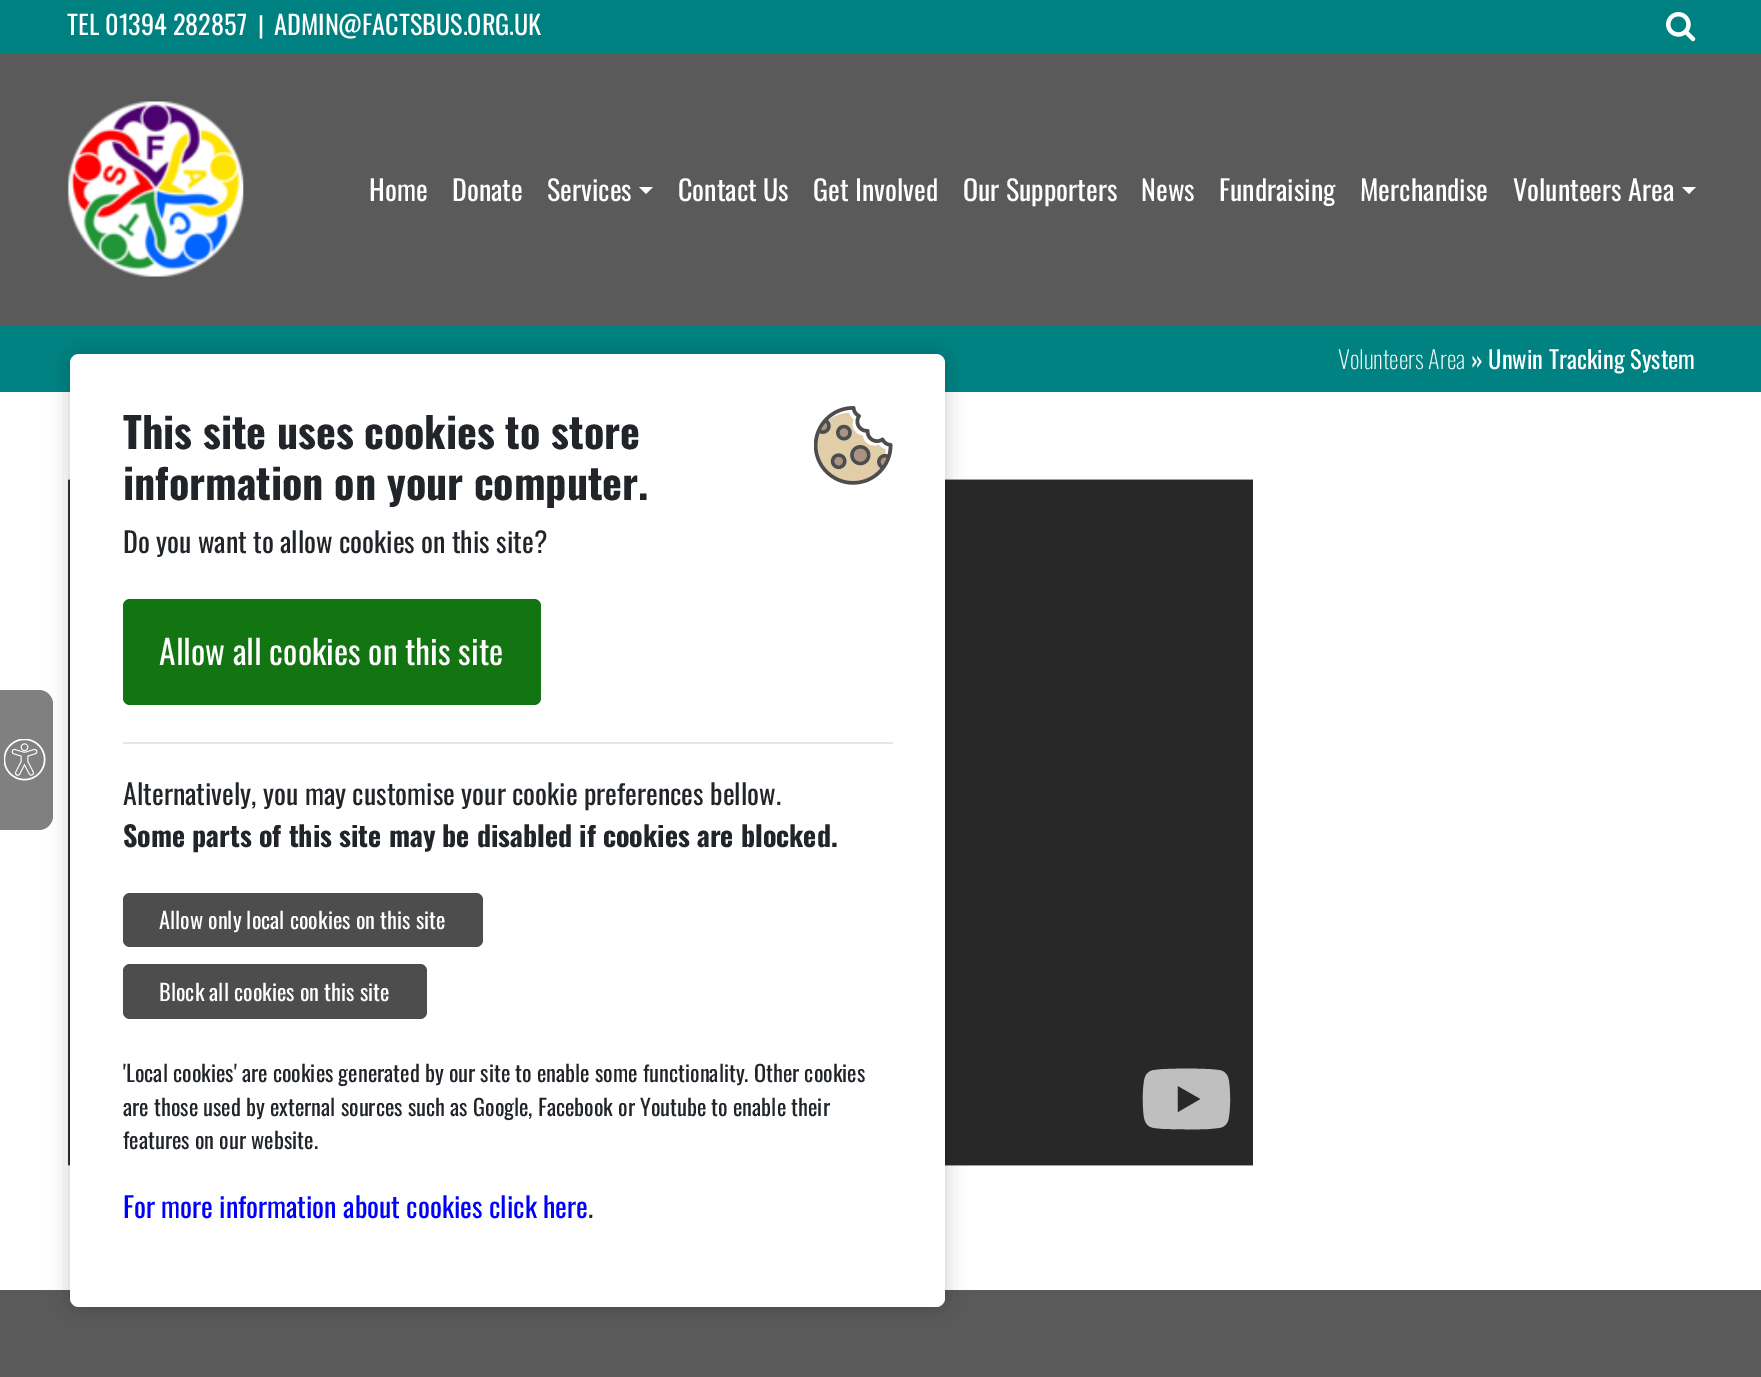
%!PS-Adobe-3.0
%%BoundingBox: 0 0 1761 1377
%%LanguageLevel: 3
%%Pages: 1
%%EndComments
%%BeginProlog
/setink { 3 { 255 div 3 1 roll } repeat setrgbcolor } def
/usefont { [ exch dup neg 0 0 3 -1 roll 0 0 ] selectfont } def
/drawtext { setink usefont moveto show } def
/fillbox { setink rectfill } def
/setalpha { dup .setfillconstantalpha .setstrokeconstantalpha } def
/rrect { 5 dict begin { /r /h /w /y /x } { exch def } forall
  x r add y moveto x w add y 2 copy h add r arct x w add y h add x 1 index r arct
  x y h add x y r arct x y 2 copy exch w add exch r arct closepath end } def
/softshadow { 12 dict begin { /a /b /q /h /w /y /x } { exch def } forall gsave /was 0 def
  9 -2 -9 { dup b mul 4 div /e exch def 1 sub .425 mul 2.718 exch exp 1 add a .99 .min exch div /now exch def
    1 1 now sub 1 was sub div sub setalpha /was now def
    w h .min e 2 mul add 0 gt { x e sub y e sub w e 2 mul add h e 2 mul add
      q e add b .6 mul add w h .min 2 div e add .min 0 .max rrect fill } if } for grestore end } def
/drawimage { 5 dict begin { /h /w /y /x /name } { exch def } forall
  gsave x y translate w h scale
  w h 8 [w 0 0 h 0 0] name (r) file false 3 colorimage grestore end } def
%%EndProlog
%%BeginSetup
<< /PageSize [1761 1377] /PageUsesTransparency true >> setpagedevice
%%EndSetup
%%Page: 1 1
0 .pushpdf14devicefilter
0 1377 translate 1 -1 scale
4 setmiterlimit
0 0 1761 1377 255 255 255 fillbox
0 0 1761 53 0 129 129 fillbox
(TEL 01394 282857) 67 35 /Oswald-Regular 26.25 255 255 255 drawtext
(|) 258 35 /Oswald-Regular 24.5 255 255 255 drawtext
(ADMIN@FACTSBUS.ORG.UK) 274 35 /Oswald-Regular 26.25 255 255 255 drawtext
(assets/img1.rgb) 1666 12 30 30 drawimage
0 53 1761 273 90 90 90 fillbox
(assets/img2.rgb) 67 101 177 176 drawimage
(Home) 369 201 /Oswald-Regular 28 255 255 255 drawtext
(Donate) 452 201 /Oswald-Regular 28 255 255 255 drawtext
(Services) 547 201 /Oswald-Regular 28 255 255 255 drawtext
639 187 moveto 653 187 lineto 646 194 lineto closepath fill
(Contact Us) 678 201 /Oswald-Regular 28 255 255 255 drawtext
(Get Involved) 813 201 /Oswald-Regular 28 255 255 255 drawtext
(Our Supporters) 963 201 /Oswald-Regular 28 255 255 255 drawtext
(News) 1141 201 /Oswald-Regular 28 255 255 255 drawtext
(Fundraising) 1219 201 /Oswald-Regular 28 255 255 255 drawtext
(Merchandise) 1360 201 /Oswald-Regular 28 255 255 255 drawtext
(Volunteers Area) 1513 201 /Oswald-Regular 28 255 255 255 drawtext
1682 187 moveto 1696 187 lineto 1689 194 lineto closepath fill
0 326 1761 66 0 130 130 fillbox
(Volunteers Area) 1338 369 /Oswald-ExtraLight 24.5 255 255 255 drawtext
(» Unwin Tracking System) 1471 369 /Oswald-Regular 24.5 255 255 255 drawtext
128 128 128 setink
0 690 moveto 39 690 lineto 46.5 690 53 696.5 53 704 curveto 53 816 lineto 53 823.5 46.5 830 39 830 curveto 0 830 lineto closepath fill
(assets/img4.rgb) 4 739 42 42 drawimage
(assets/img5.rgb) 68 479 1185 687 drawimage
0 1290 1761 87 90 90 90 fillbox
0 0 0 setink
70 354 875 953 9 10.5 0.2 softshadow
255 255 255 setink
70 354 875 953 9 rrect fill
(This site uses cookies to store) 123 449 /Oswald-Bold 42 33 37 41 drawtext
(information on your computer.) 123 500 /Oswald-Bold 42 33 37 41 drawtext
(assets/img3.rgb) 814 406 79 79 drawimage
(Do you want to allow cookies on this site?) 123 553 /Oswald-Regular 28 33 37 41 drawtext
18 117 18 setink
123 599 418 106 7 rrect fill
(Allow all cookies on this site) 159 665 /Oswald-Regular 33.6 255 255 255 drawtext
123 742 770 2 230 230 230 fillbox
(Alternatively, you may customise your cookie preferences bellow.) 123 805 /Oswald-Regular 28 33 37 41 drawtext
(Some parts of this site may be disabled if cookies are blocked.) 123 847 /Oswald-Bold 28 33 37 41 drawtext
77 77 77 setink
123 893 360 54 7 rrect fill
(Allow only local cookies on this site) 159 929 /Oswald-Regular 22.4 255 255 255 drawtext
77 77 77 setink
123 964 304 55 7 rrect fill
(Block all cookies on this site) 159 1001 /Oswald-Regular 22.4 255 255 255 drawtext
('Local cookies' are cookies generated by our site to enable some functionality. Other cookies) 123 1082 /Oswald-Regular 22.4 33 37 41 drawtext
(are those used by external sources such as Google, Facebook or Youtube to enable their) 123 1116 /Oswald-Regular 22.4 33 37 41 drawtext
(features on our website.) 123 1149 /Oswald-Regular 22.4 33 37 41 drawtext
(For more information about cookies click here) 123 1218 /Oswald-Regular 28 0 0 255 drawtext
(.) 588 1218 /Oswald-Regular 28 33 37 41 drawtext
.poppdf14devicefilter showpage
%%EOF
